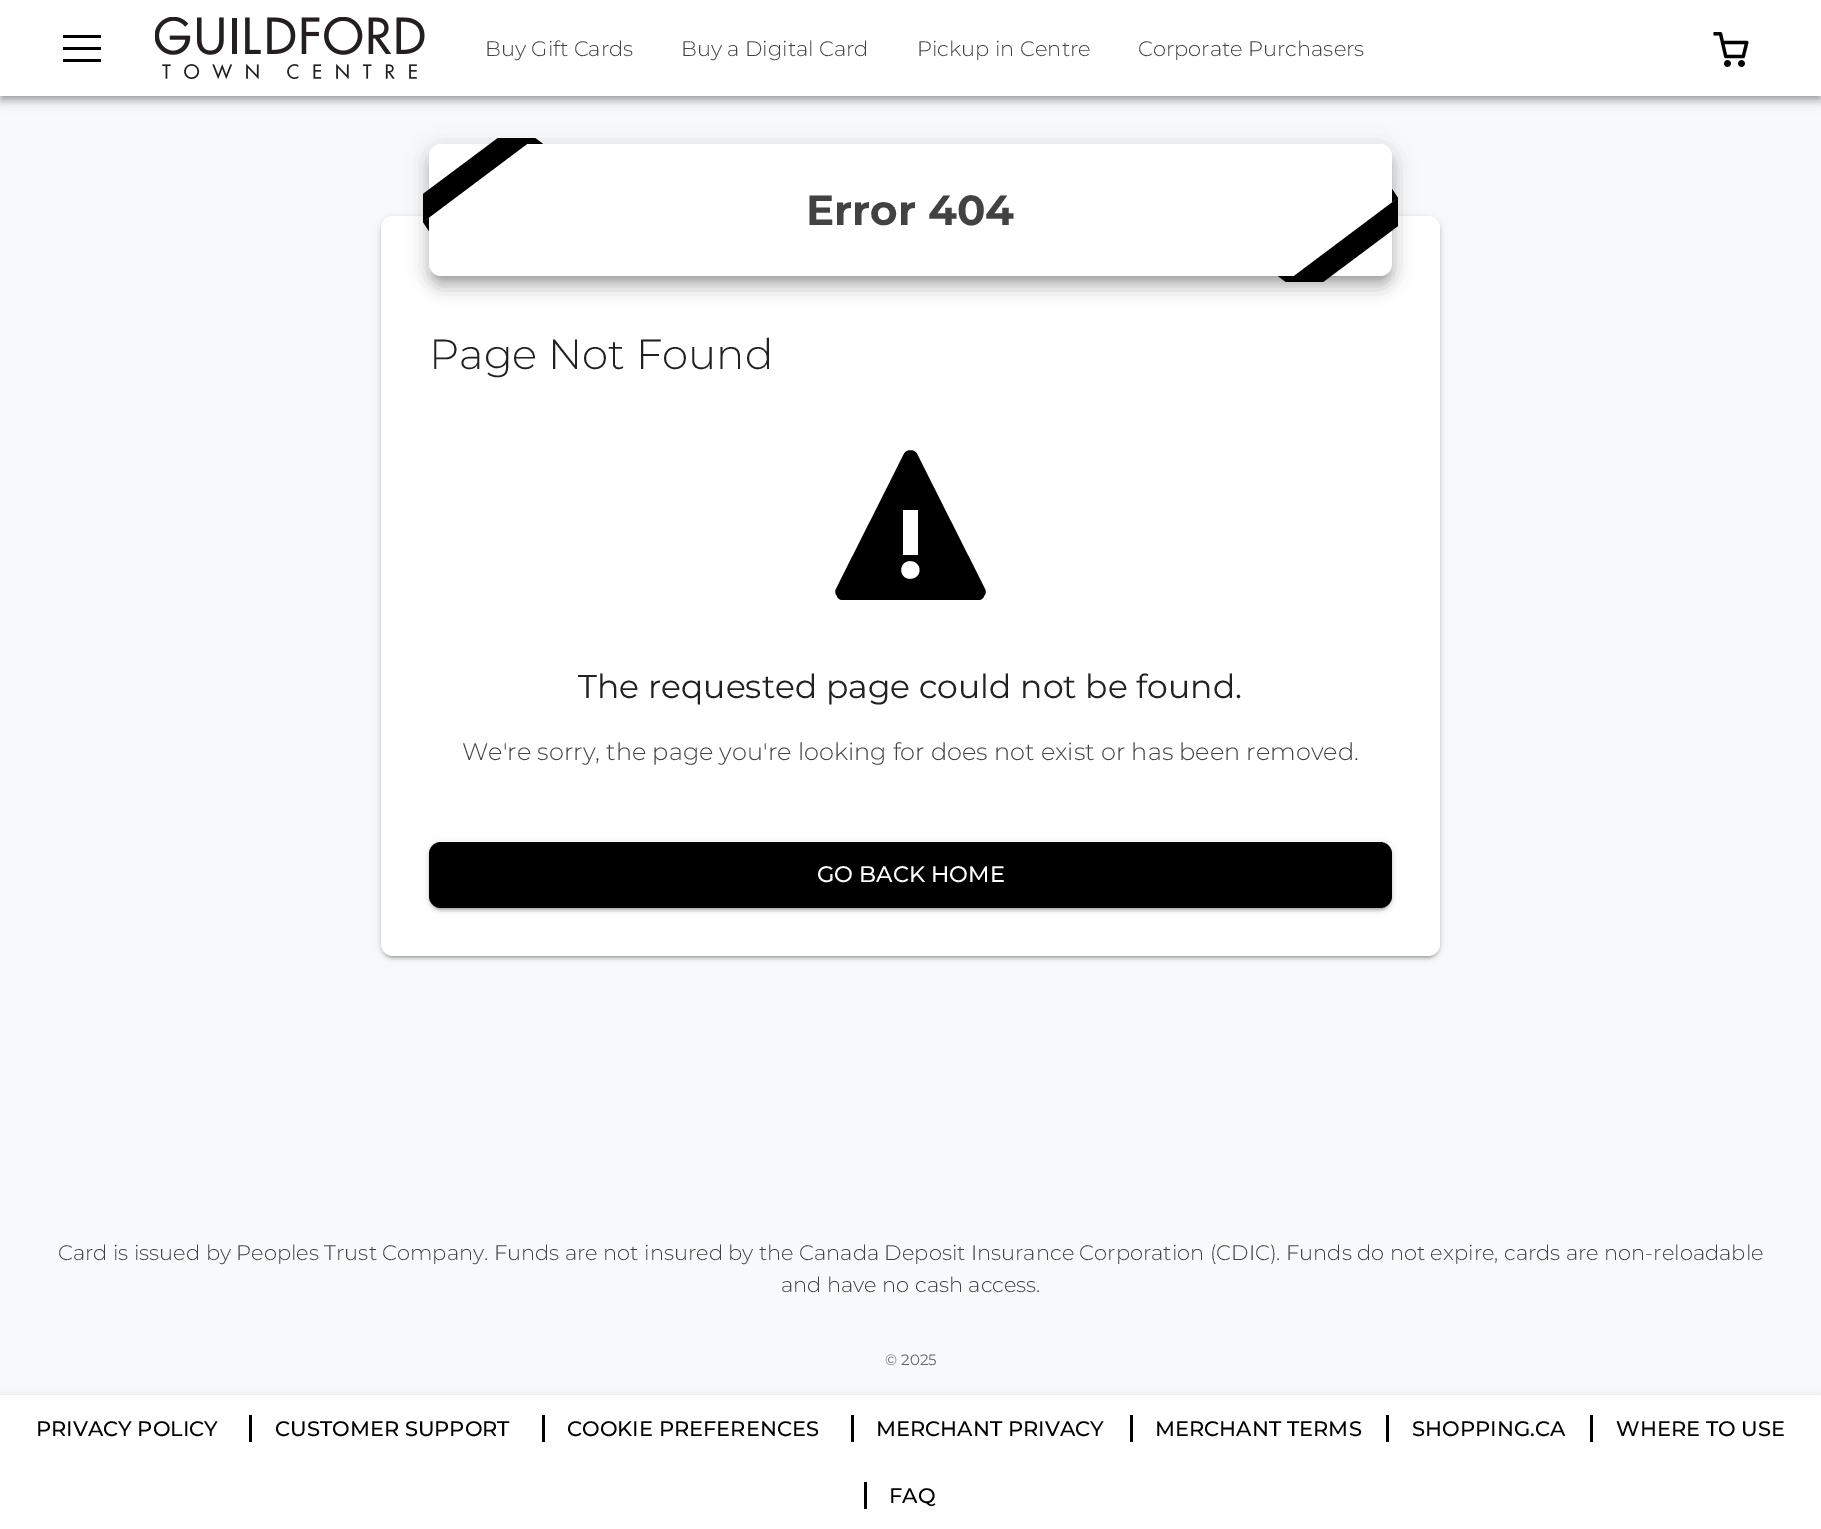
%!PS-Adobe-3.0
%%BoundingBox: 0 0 1821 1529
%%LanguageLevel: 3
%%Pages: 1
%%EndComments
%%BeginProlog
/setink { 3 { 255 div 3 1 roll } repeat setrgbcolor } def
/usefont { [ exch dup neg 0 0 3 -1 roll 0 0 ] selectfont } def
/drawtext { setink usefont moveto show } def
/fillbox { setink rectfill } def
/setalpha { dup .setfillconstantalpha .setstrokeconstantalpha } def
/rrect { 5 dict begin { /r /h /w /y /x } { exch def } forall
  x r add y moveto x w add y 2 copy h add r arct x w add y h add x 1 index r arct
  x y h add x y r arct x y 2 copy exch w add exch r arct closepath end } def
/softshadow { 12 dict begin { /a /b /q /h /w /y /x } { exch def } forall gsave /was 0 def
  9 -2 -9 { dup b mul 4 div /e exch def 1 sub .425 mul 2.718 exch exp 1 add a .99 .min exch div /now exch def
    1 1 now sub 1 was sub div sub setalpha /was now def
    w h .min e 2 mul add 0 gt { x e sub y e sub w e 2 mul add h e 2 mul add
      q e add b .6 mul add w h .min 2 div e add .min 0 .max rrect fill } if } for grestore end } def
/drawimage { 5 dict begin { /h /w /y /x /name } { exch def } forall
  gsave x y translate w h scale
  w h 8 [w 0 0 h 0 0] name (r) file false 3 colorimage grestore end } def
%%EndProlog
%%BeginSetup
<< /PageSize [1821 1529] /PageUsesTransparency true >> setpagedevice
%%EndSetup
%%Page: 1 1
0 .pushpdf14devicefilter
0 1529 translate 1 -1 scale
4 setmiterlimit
0 0 1821 1529 248 249 250 fillbox
0 0 0 setink
0 2 1821 96 0 7.5 0.12 softshadow
0 6 1821 96 0 4 0.14 softshadow
2 5 1818 93 0 3 0.2 softshadow
0 0 1821 96 255 255 255 fillbox
63 47 38 3 0 0 0 fillbox
63 35 38 3 0 0 0 fillbox
63 59 38 3 0 0 0 fillbox
(assets/img1.rgb) 155 17 270 63 drawimage
(Buy Gift Cards) 485 56 /Montserrat-Light 21 66 66 66 drawtext
(Buy a Digital Card) 681 56 /Montserrat-Light 21 66 66 66 drawtext
(Pickup in Centre) 917 56 /Montserrat-Light 21 66 66 66 drawtext
(Corporate Purchasers) 1138 56 /Montserrat-Light 21 66 66 66 drawtext
(assets/img2.rgb) 1713 32 36 35 drawimage
0 0 0 setink
381 218 1059 739 12 4 0.12 softshadow
381 219 1059 740 12 1.5 0.14 softshadow
384 224 1053 733 9 1 0.2 softshadow
255 255 255 setink
381 216 1059 740 12 rrect fill
0 0 0 setink
426 146 969 138 15 10.5 0.12 softshadow
428 155 966 135 14 7.5 0.14 softshadow
434 156 954 123 8 4 0.2 softshadow
255 255 255 setink
429 144 963 132 12 rrect fill
0 0 0 setink
535 138 moveto 543 144 lineto 527 144 lineto closepath 423 222 moveto 429 218 lineto 429 231 lineto closepath fill
0.25 setalpha
535 138 moveto 543 144 lineto 527 144 lineto closepath 423 222 moveto 429 218 lineto 429 231 lineto closepath fill
1 setalpha
535 138 moveto 423 222 lineto 423 194 lineto 498 138 lineto closepath fill
(Error 404) 806 225 /Montserrat-Bold 42 66 66 66 drawtext
0 0 0 setink
1286 282 moveto 1278 276 lineto 1294 276 lineto closepath 1398 198 moveto 1392 202 lineto 1392 189 lineto closepath fill
0.25 setalpha
1286 282 moveto 1278 276 lineto 1294 276 lineto closepath 1398 198 moveto 1392 202 lineto 1392 189 lineto closepath fill
1 setalpha
1286 282 moveto 1398 198 lineto 1398 226 lineto 1323 282 lineto closepath fill
(Page Not Found) 429 369 /Montserrat-Light 42 33 33 33 drawtext
0 0 0 setink
985 589 moveto 917 454 lineto 915 449 906 449 904 454 curveto 836 589 lineto 835 591 835 594 837 596 curveto 838 599 840 600 843 600 curveto 978 600 lineto 981 600 983 599 984 596 curveto 986 594 986 591 985 589 curveto closepath 903 510 moveto 918 510 lineto 918 555 lineto 903 555 lineto closepath 910 579 moveto 898 579 898 561 910 561 curveto 923 561 923 579 910 579 curveto closepath fill
(The requested page could not be found.) 578 698 /Montserrat-Regular 33 33 33 33 drawtext
(We're sorry, the page you're looking for does not exist or has been removed.) 462 760 /Montserrat-Light 24 66 66 66 drawtext
0 0 0 setink
429 843 963 66 12 4 0.12 softshadow
429 845 963 66 12 1.5 0.14 softshadow
432 849 957 60 9 1 0.2 softshadow
429 842 963 66 12 rrect fill
(GO BACK HOME) 817 882 /Montserrat-Medium 22.5 255 255 255 drawtext
(Card is issued by Peoples Trust Company. Funds are not insured by the Canada Deposit Insurance Corporation \(CDIC\). Funds do not expire, cards are non-reloadable) 58 1260 /Montserrat-Light 21 66 66 66 drawtext
(and have no cash access.) 781 1292 /Montserrat-Light 21 66 66 66 drawtext
(© 2025) 885 1365 /Montserrat-Regular 15 102 102 102 drawtext
0 0 0 setink
0 1397 1821 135 0 4 0.12 softshadow
0 1395 1821 134 255 255 255 fillbox
(PRIVACY POLICY) 36 1436 /Montserrat-Medium 21 0 0 0 drawtext
249 1415 3 27 0 0 0 fillbox
(CUSTOMER SUPPORT) 275 1436 /Montserrat-Medium 21 0 0 0 drawtext
542 1415 3 27 0 0 0 fillbox
(COOKIE PREFERENCES) 567 1436 /Montserrat-Medium 21 0 0 0 drawtext
851 1415 3 27 0 0 0 fillbox
(MERCHANT PRIVACY) 876 1436 /Montserrat-Medium 21 0 0 0 drawtext
1130 1415 3 27 0 0 0 fillbox
(MERCHANT TERMS) 1155 1436 /Montserrat-Medium 21 0 0 0 drawtext
1386 1415 3 27 0 0 0 fillbox
(SHOPPING.CA) 1412 1436 /Montserrat-Medium 21 0 0 0 drawtext
1590 1415 3 27 0 0 0 fillbox
(WHERE TO USE) 1616 1436 /Montserrat-Medium 21 0 0 0 drawtext
864 1482 3 27 0 0 0 fillbox
(FAQ) 889 1503 /Montserrat-Medium 21 0 0 0 drawtext
.poppdf14devicefilter showpage
%%EOF
